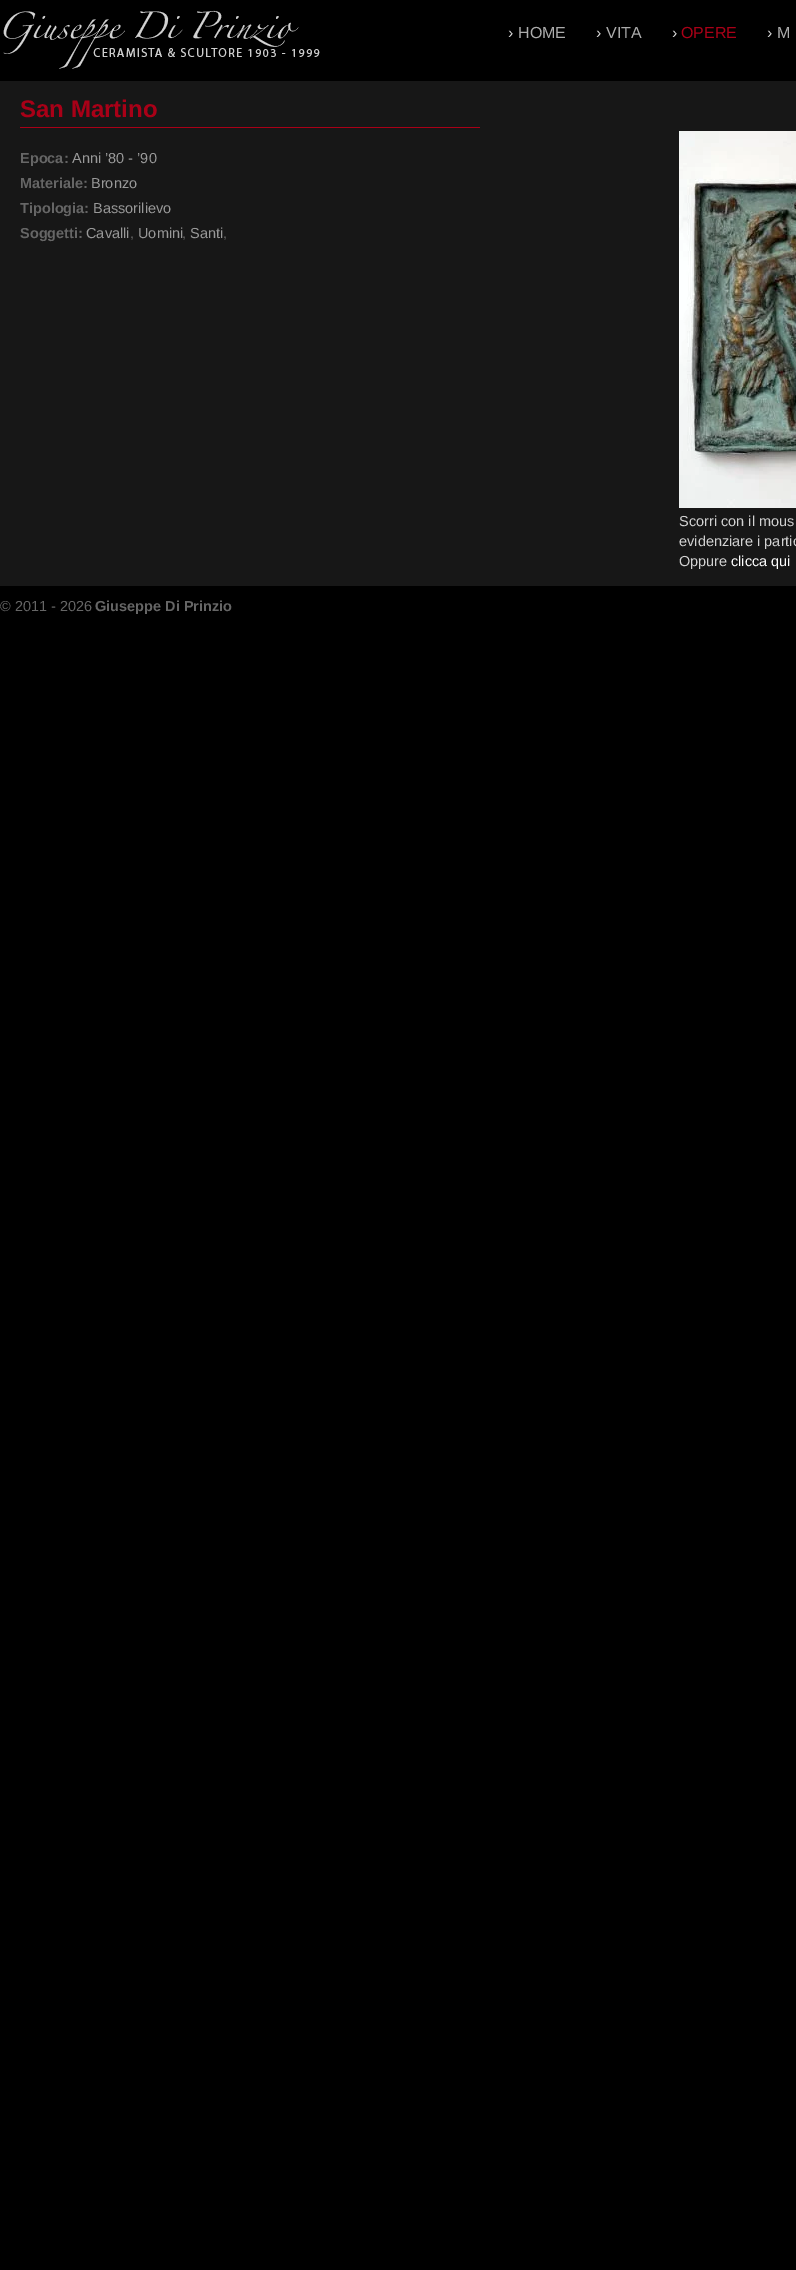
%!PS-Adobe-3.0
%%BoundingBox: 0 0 796 2270
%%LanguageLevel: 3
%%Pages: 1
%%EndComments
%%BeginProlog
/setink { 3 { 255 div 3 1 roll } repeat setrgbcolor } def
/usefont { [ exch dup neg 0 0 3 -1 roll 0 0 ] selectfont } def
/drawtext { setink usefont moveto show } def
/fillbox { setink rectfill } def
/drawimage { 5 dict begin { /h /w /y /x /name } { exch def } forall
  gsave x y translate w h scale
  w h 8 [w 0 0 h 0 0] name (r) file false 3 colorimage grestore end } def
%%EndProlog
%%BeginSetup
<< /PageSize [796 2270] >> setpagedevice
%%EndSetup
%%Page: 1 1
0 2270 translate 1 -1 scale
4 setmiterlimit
0 0 796 2270 0 0 0 fillbox
(assets/img1.rgb) 3 10 317 59 drawimage
(›) 508 38 /LiberationSans-Regular 16 210 210 210 drawtext
(HOME) 518 38 /LiberationSans-Regular 16 172 172 172 drawtext
(›) 596 38 /LiberationSans-Regular 16 210 210 210 drawtext
(VITA) 606 38 /LiberationSans-Regular 16 172 172 172 drawtext
(›) 672 38 /LiberationSans-Regular 16 210 210 210 drawtext
(OPERE) 681 38 /LiberationSans-Regular 16 169 0 23 drawtext
(›) 767 38 /LiberationSans-Regular 16 210 210 210 drawtext
(M) 777 38 /LiberationSans-Regular 16 172 172 172 drawtext
0 81 796 505 23 23 23 fillbox
20 127 460 1 169 0 23 fillbox
(San Martino) 20 117 /LiberationSans-Bold 24 169 0 23 drawtext
(Epoca:) 20 163 /LiberationSans-Bold 14.5 102 102 102 drawtext
(Anni ’80 - ’90) 72 163 /LiberationSans-Regular 14.5 153 153 153 drawtext
(Materiale:) 20 188 /LiberationSans-Bold 14.5 102 102 102 drawtext
(Bronzo) 91 188 /LiberationSans-Regular 14.5 153 153 153 drawtext
(Tipologia:) 20 213 /LiberationSans-Bold 14.5 102 102 102 drawtext
(Bassorilievo) 93 213 /LiberationSans-Regular 14.5 153 153 153 drawtext
(Soggetti:) 20 238 /LiberationSans-Bold 14.5 102 102 102 drawtext
(Cavalli) 86 238 /LiberationSans-Regular 14.5 153 153 153 drawtext
(,) 130 238 /LiberationSans-Regular 14.5 102 102 102 drawtext
(Uomini) 138 238 /LiberationSans-Regular 14.5 153 153 153 drawtext
(,) 182 238 /LiberationSans-Regular 14.5 102 102 102 drawtext
(Santi) 190 238 /LiberationSans-Regular 14.5 153 153 153 drawtext
(,) 223 238 /LiberationSans-Regular 14.5 102 102 102 drawtext
(assets/img2.rgb) 679 131 117 377 drawimage
(Scorri con il mous) 679 526 /LiberationSans-Regular 14.5 210 210 210 drawtext
(evidenziare i partic) 679 546 /LiberationSans-Regular 14.5 210 210 210 drawtext
(Oppure) 679 566 /LiberationSans-Regular 14.5 210 210 210 drawtext
(clicca qui) 731 566 /LiberationSans-Regular 14.5 255 255 255 drawtext
(© 2011 - 2026) 0 611 /LiberationSans-Regular 14.5 102 102 102 drawtext
(Giuseppe Di Prinzio) 95 611 /LiberationSans-Bold 14.5 102 102 102 drawtext
showpage
%%EOF
